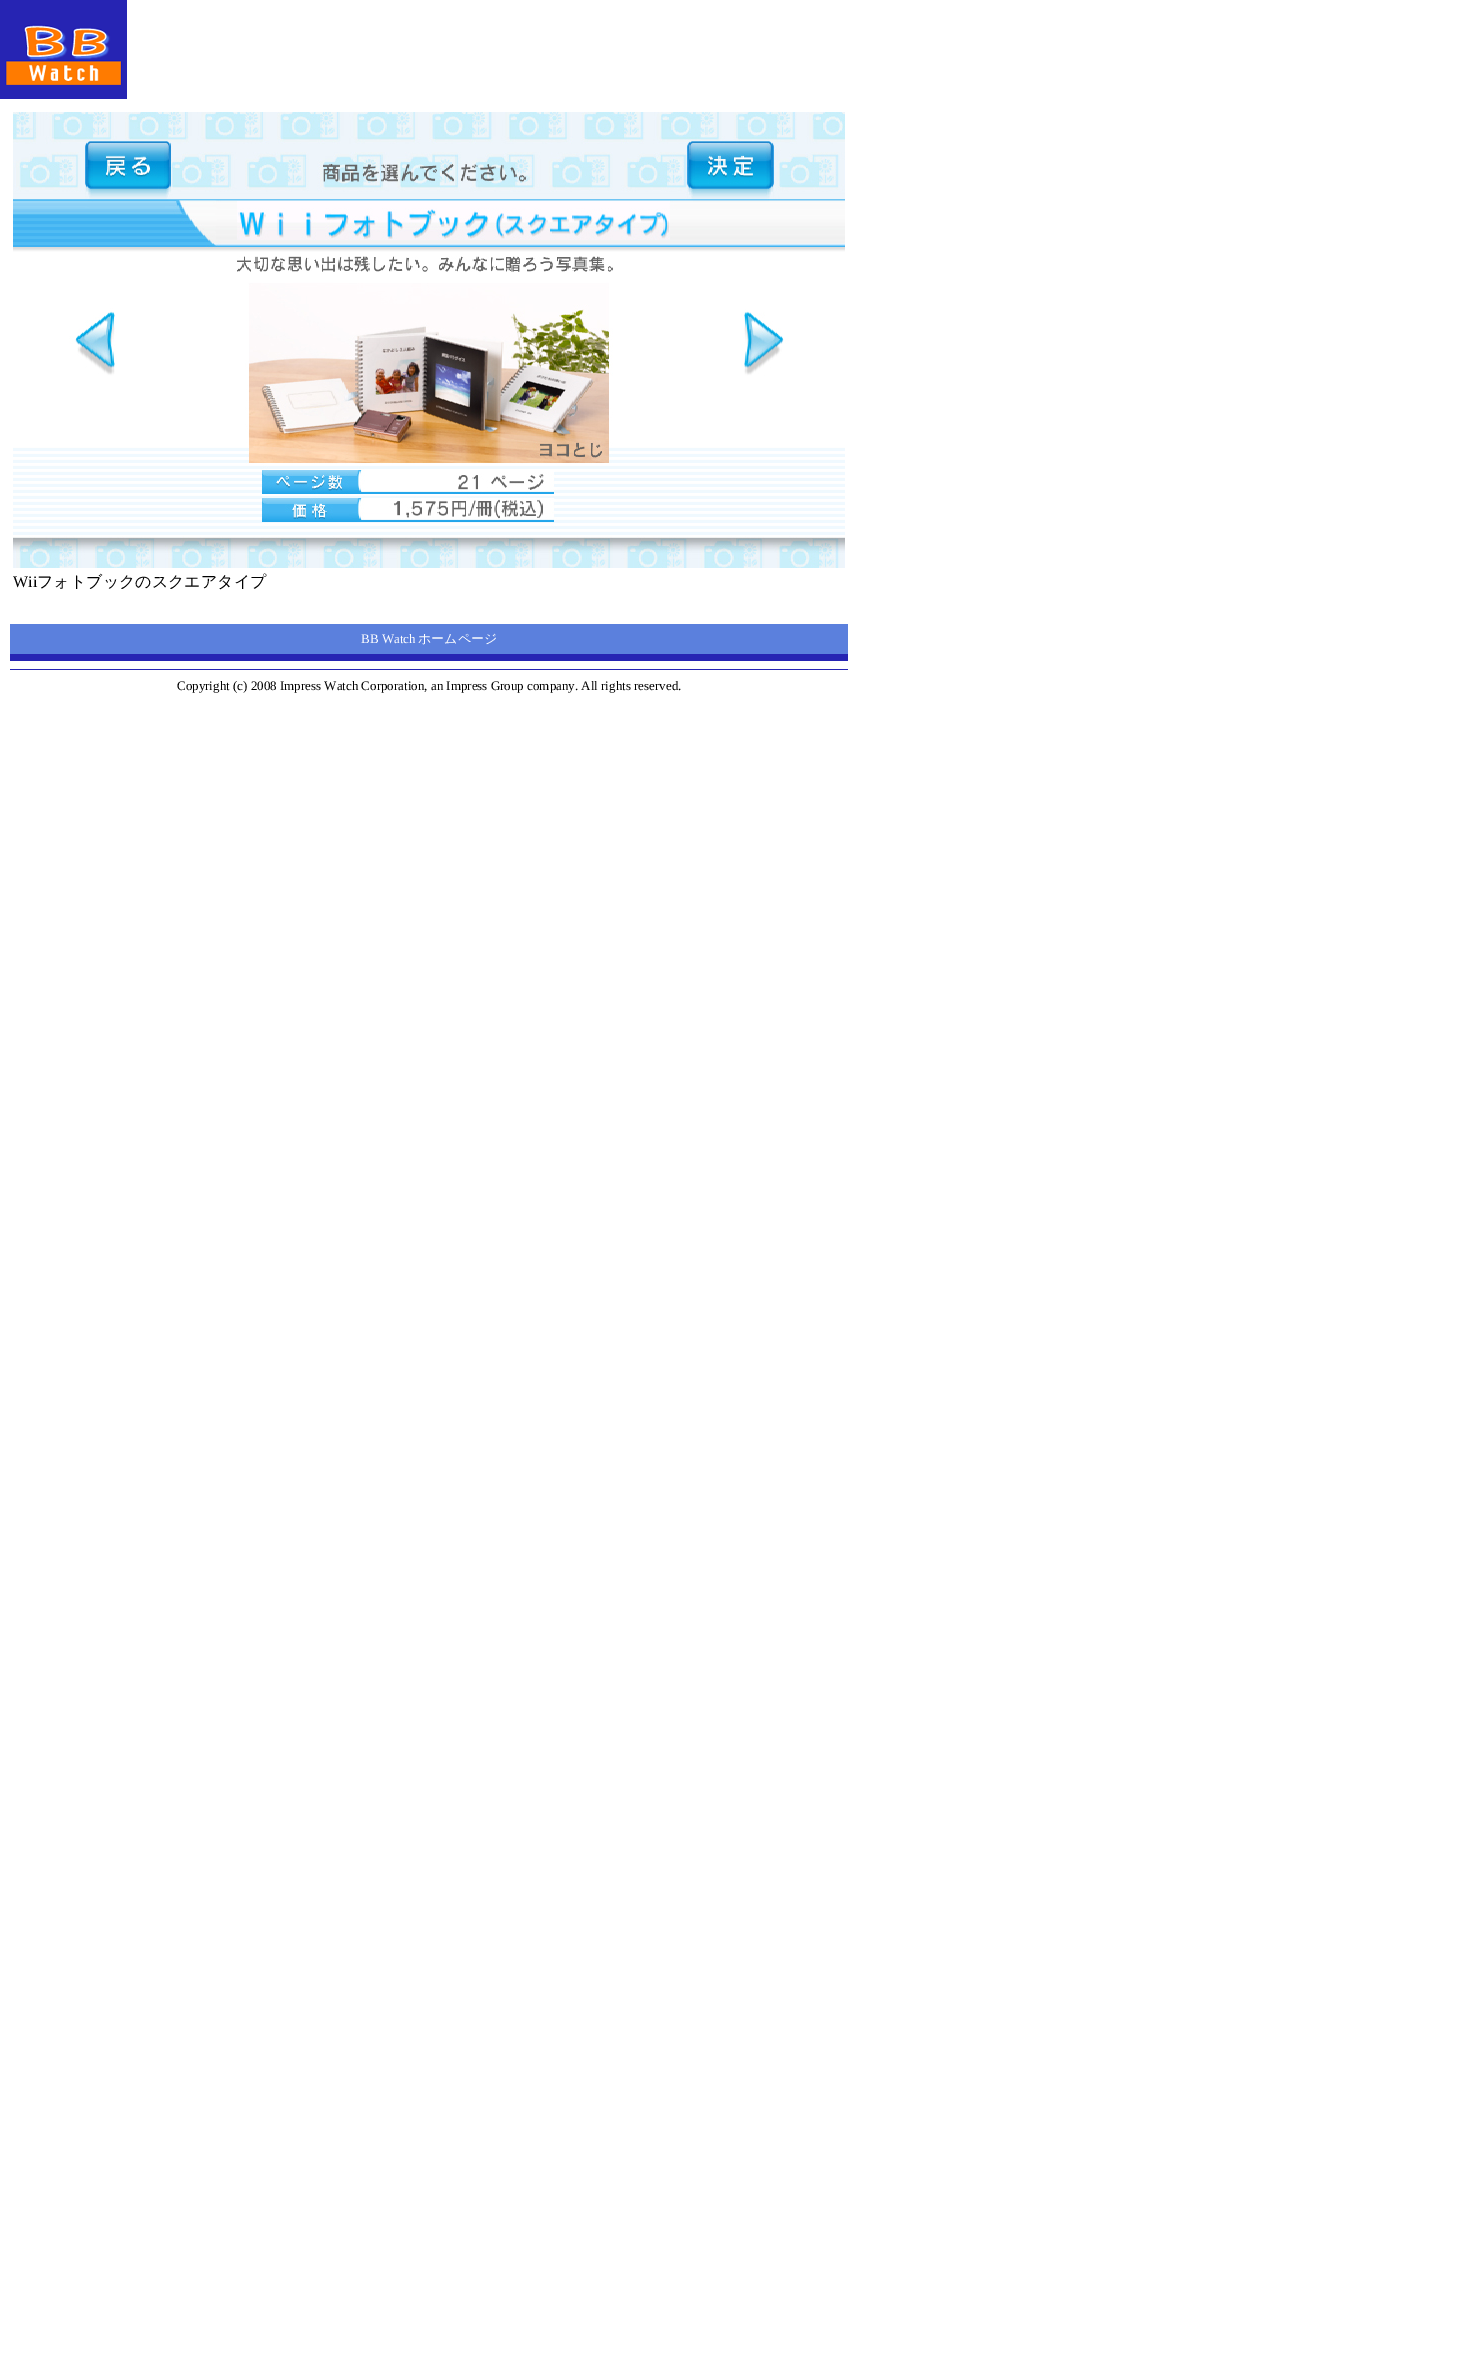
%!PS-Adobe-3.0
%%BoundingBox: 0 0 1468 2365
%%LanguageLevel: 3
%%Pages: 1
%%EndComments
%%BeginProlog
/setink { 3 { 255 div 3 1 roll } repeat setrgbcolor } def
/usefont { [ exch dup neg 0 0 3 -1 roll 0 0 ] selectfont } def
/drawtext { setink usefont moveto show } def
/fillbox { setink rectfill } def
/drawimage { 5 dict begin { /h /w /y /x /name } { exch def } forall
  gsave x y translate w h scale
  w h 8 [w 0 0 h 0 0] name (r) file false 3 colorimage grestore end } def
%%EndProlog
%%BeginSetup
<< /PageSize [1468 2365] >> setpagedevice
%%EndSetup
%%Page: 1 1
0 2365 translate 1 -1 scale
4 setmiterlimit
0 0 1468 2365 255 255 255 fillbox
(assets/img1.rgb) 0 0 127 99 drawimage
(assets/img2.rgb) 13 112 832 456 drawimage
(Wii) 13 587 /LiberationSerif-Regular 16 0 0 0 drawtext
(フォトブックのスクエアタイプ) 37 587 /WenQuanYiZenHei-Medium 16 0 0 0 drawtext
10 624 838 30 91 128 221 fillbox
(BB Watch) 361 643 /LiberationSerif-Regular 13 255 255 255 drawtext
(ホームページ) 418 643 /WenQuanYiZenHei-Medium 13 255 255 255 drawtext
10 654 838 7 38 36 179 fillbox
10 669 838 1 38 36 179 fillbox
(Copyright \(c\) 2008 Impress Watch Corporation, an Impress Group company. All rights reserved.) 177 690 /LiberationSerif-Regular 13 0 0 0 drawtext
showpage
%%EOF
